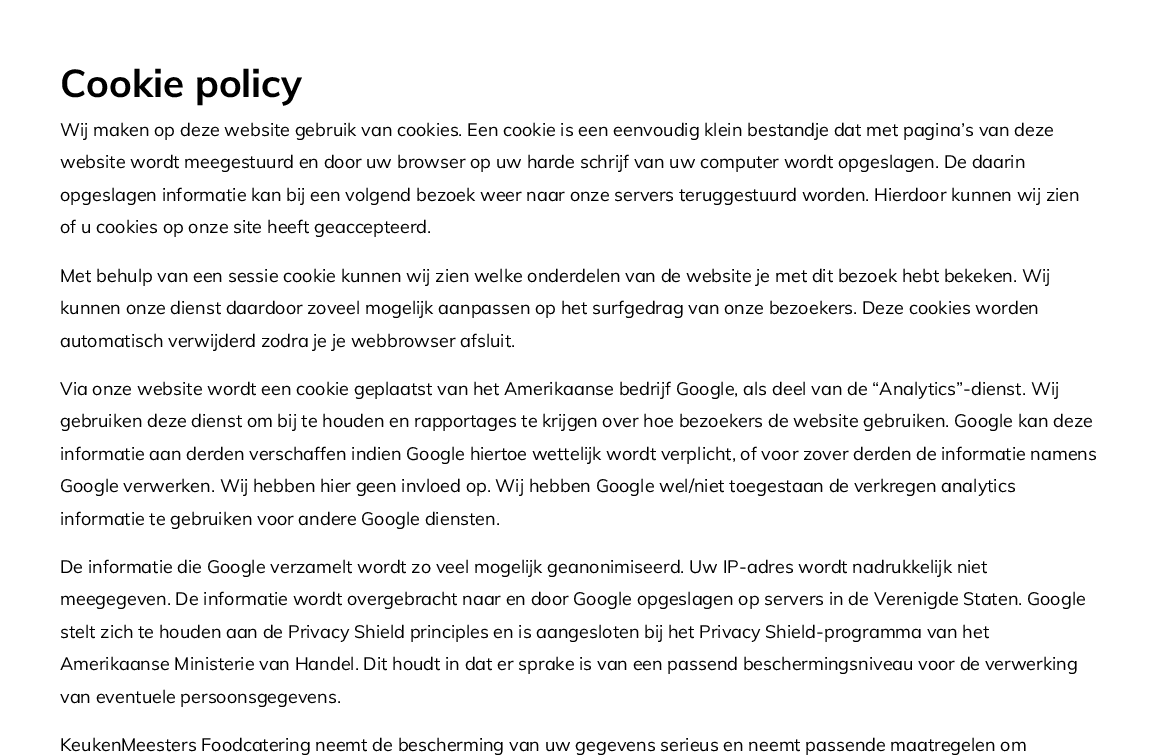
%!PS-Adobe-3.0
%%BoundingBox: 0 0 1160 755
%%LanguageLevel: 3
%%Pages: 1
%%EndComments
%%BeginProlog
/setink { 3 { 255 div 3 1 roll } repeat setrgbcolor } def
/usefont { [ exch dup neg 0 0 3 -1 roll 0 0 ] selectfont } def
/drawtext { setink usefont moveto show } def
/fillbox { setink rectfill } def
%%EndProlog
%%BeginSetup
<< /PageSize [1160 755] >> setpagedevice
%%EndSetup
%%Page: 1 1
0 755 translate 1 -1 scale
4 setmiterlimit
0 0 1160 755 255 255 255 fillbox
(Cookie policy) 60 97 /Muli-Bold 38.5 0 0 0 drawtext
(Wij maken op deze website gebruik van cookies. Een cookie is een eenvoudig klein bestandje dat met pagina’s van deze) 60 136 /Muli-Regular 18 0 0 0 drawtext
(website wordt meegestuurd en door uw browser op uw harde schrijf van uw computer wordt opgeslagen. De daarin) 60 168 /Muli-Regular 18 0 0 0 drawtext
(opgeslagen informatie kan bij een volgend bezoek weer naar onze servers teruggestuurd worden. Hierdoor kunnen wij zien) 60 201 /Muli-Regular 18 0 0 0 drawtext
(of u cookies op onze site heeft geaccepteerd.) 60 233 /Muli-Regular 18 0 0 0 drawtext
(Met behulp van een sessie cookie kunnen wij zien welke onderdelen van de website je met dit bezoek hebt bekeken. Wij) 60 282 /Muli-Regular 18 0 0 0 drawtext
(kunnen onze dienst daardoor zoveel mogelijk aanpassen op het surfgedrag van onze bezoekers. Deze cookies worden) 60 314 /Muli-Regular 18 0 0 0 drawtext
(automatisch verwijderd zodra je je webbrowser afsluit.) 60 347 /Muli-Regular 18 0 0 0 drawtext
(Via onze website wordt een cookie geplaatst van het Amerikaanse bedrijf Google, als deel van de “Analytics”-dienst. Wij) 60 395 /Muli-Regular 18 0 0 0 drawtext
(gebruiken deze dienst om bij te houden en rapportages te krijgen over hoe bezoekers de website gebruiken. Google kan deze) 60 427 /Muli-Regular 18 0 0 0 drawtext
(informatie aan derden verschaffen indien Google hiertoe wettelijk wordt verplicht, of voor zover derden de informatie namens) 60 460 /Muli-Regular 18 0 0 0 drawtext
(Google verwerken. Wij hebben hier geen invloed op. Wij hebben Google wel/niet toegestaan de verkregen analytics) 60 492 /Muli-Regular 18 0 0 0 drawtext
(informatie te gebruiken voor andere Google diensten.) 60 525 /Muli-Regular 18 0 0 0 drawtext
(De informatie die Google verzamelt wordt zo veel mogelijk geanonimiseerd. Uw IP-adres wordt nadrukkelijk niet) 60 573 /Muli-Regular 18 0 0 0 drawtext
(meegegeven. De informatie wordt overgebracht naar en door Google opgeslagen op servers in de Verenigde Staten. Google) 60 605 /Muli-Regular 18 0 0 0 drawtext
(stelt zich te houden aan de Privacy Shield principles en is aangesloten bij het Privacy Shield-programma van het) 60 638 /Muli-Regular 18 0 0 0 drawtext
(Amerikaanse Ministerie van Handel. Dit houdt in dat er sprake is van een passend beschermingsniveau voor de verwerking) 60 670 /Muli-Regular 18 0 0 0 drawtext
(van eventuele persoonsgegevens.) 60 703 /Muli-Regular 18 0 0 0 drawtext
(KeukenMeesters Foodcatering neemt de bescherming van uw gegevens serieus en neemt passende maatregelen om) 60 751 /Muli-Regular 18 0 0 0 drawtext
showpage
%%EOF
